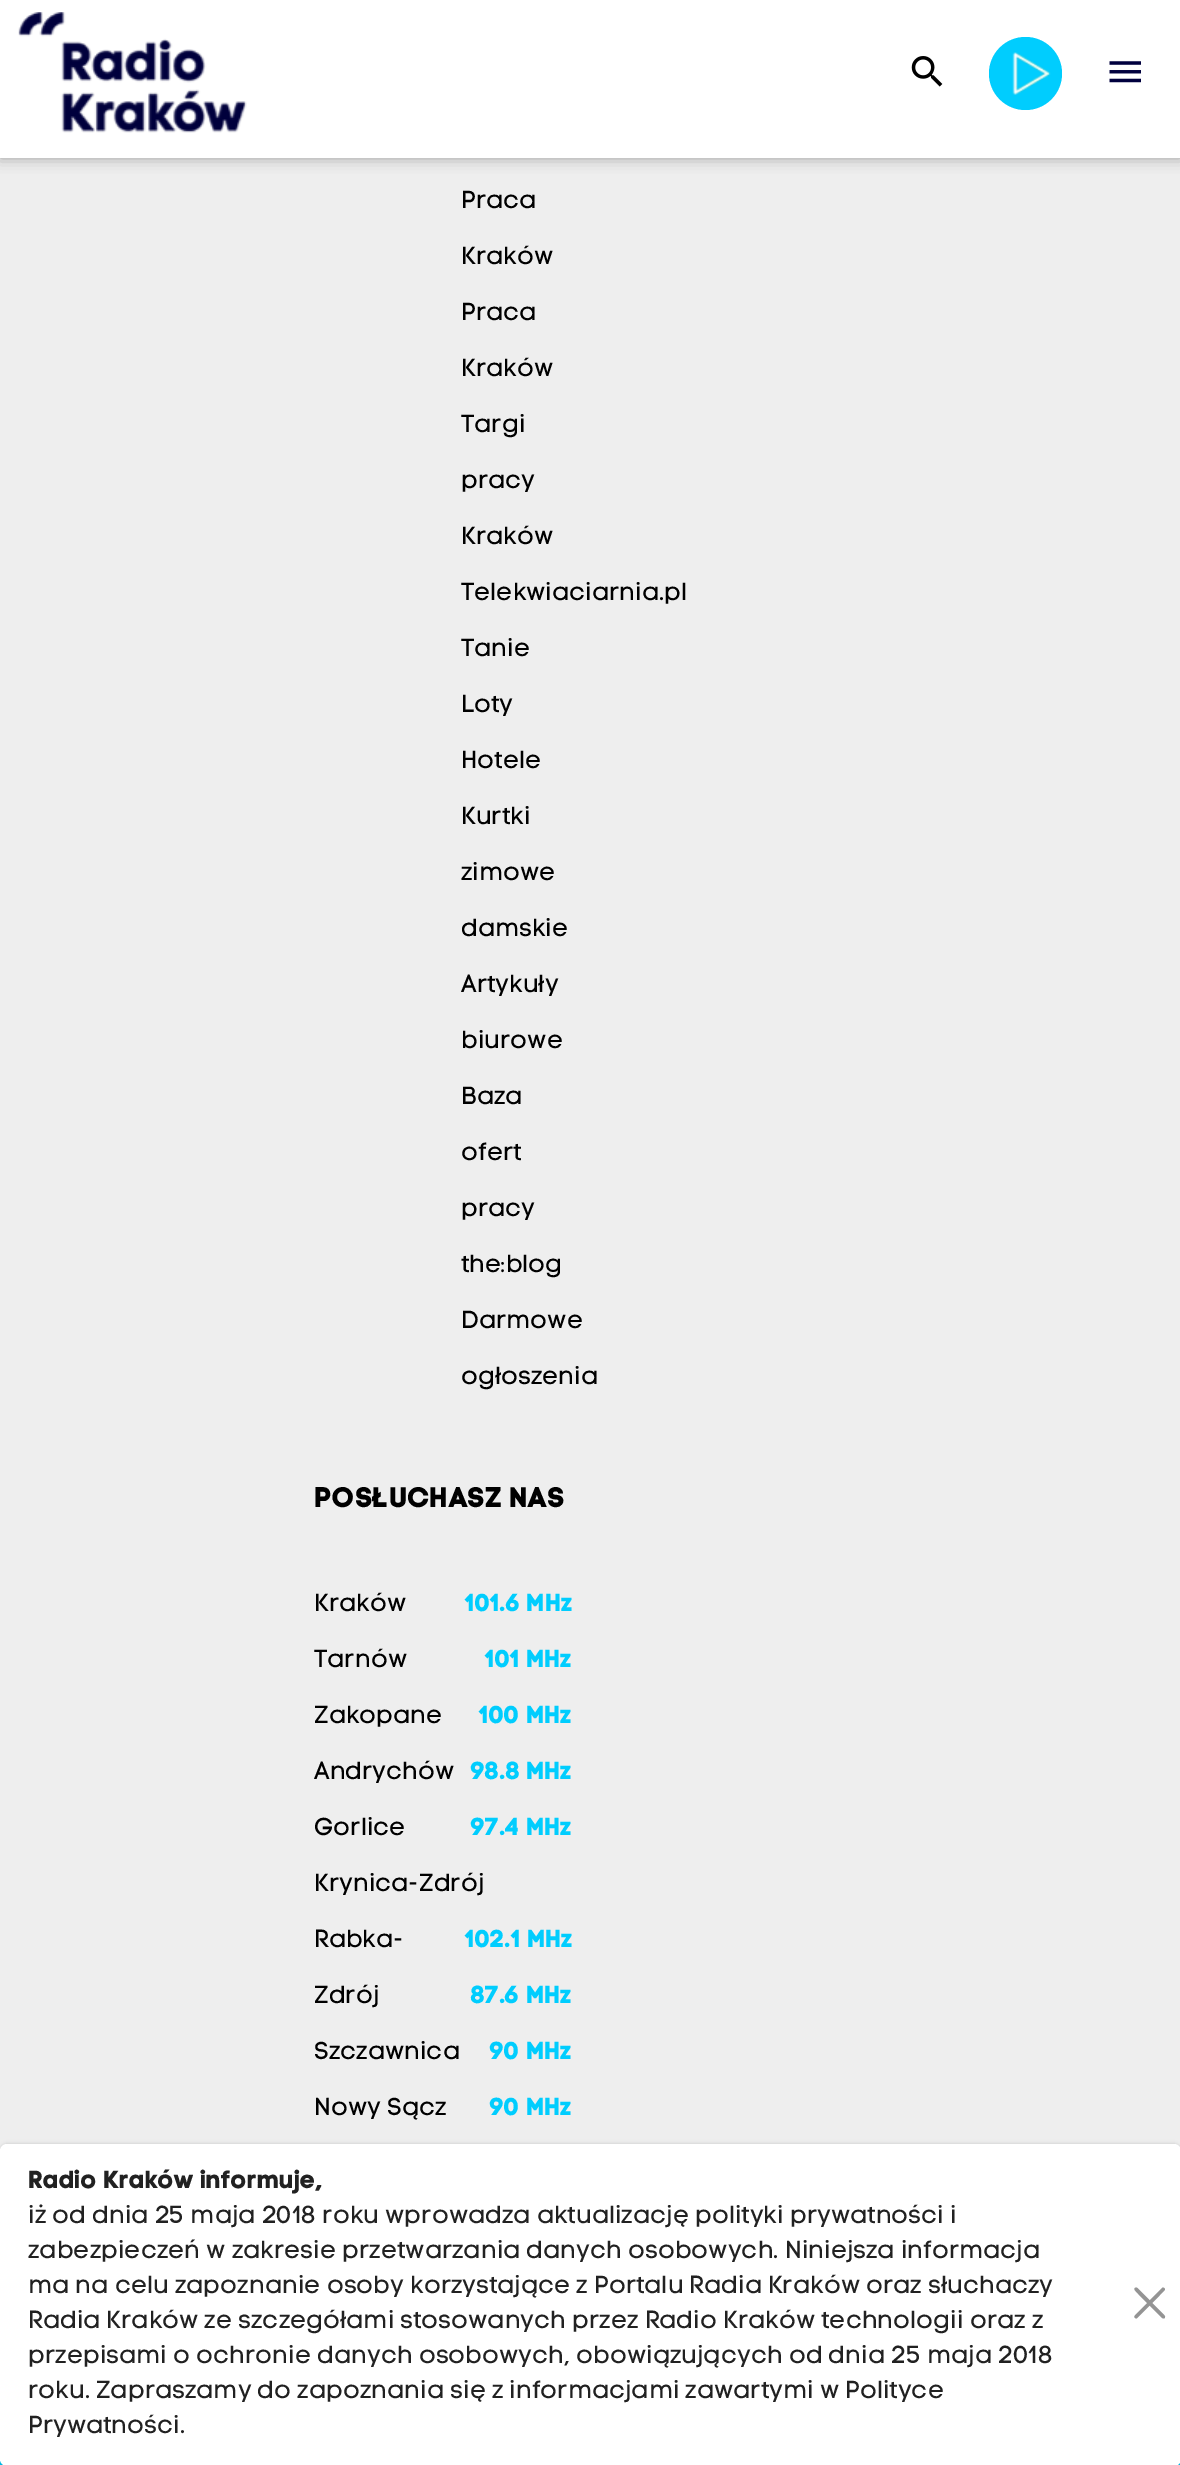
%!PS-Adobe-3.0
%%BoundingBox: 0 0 1180 2465
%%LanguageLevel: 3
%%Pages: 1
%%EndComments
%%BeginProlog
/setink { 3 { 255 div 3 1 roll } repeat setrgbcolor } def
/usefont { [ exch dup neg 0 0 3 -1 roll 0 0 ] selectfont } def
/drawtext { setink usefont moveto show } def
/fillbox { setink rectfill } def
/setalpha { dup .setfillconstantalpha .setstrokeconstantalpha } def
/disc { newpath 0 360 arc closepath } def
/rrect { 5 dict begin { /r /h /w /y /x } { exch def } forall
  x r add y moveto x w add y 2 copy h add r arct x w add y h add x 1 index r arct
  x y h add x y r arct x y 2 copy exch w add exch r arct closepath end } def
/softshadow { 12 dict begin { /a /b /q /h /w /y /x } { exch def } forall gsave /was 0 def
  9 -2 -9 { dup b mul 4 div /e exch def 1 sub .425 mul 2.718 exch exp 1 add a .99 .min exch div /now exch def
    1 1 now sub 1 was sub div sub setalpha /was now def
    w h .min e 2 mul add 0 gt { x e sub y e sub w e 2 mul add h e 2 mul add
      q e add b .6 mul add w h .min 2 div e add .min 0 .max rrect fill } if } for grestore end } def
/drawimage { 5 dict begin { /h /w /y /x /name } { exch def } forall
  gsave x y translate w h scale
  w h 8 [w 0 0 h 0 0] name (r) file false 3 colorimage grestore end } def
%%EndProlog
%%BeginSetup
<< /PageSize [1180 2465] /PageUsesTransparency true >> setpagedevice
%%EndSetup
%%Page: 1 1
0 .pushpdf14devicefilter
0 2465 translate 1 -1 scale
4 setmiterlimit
0 0 1180 2465 238 238 238 fillbox
0 0 0 setink
0 0 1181 158 0 7 0.33 softshadow
0 0 1180 158 255 255 255 fillbox
(assets/img1.rgb) 18 12 229 121 drawimage
(assets/img2.rgb) 911 56 32 31 drawimage
0 205 254 setink
1025.5 73.5 36.5 disc fill
(assets/img3.rgb) 1012 52 39 43 drawimage
(assets/img4.rgb) 1109 61 32 22 drawimage
(Praca) 461 208 /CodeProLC-Regular 24.5 0 0 0 drawtext
(Kraków) 461 264 /CodeProLC-Regular 24.5 0 0 0 drawtext
(Praca) 461 320 /CodeProLC-Regular 24.5 0 0 0 drawtext
(Kraków) 461 376 /CodeProLC-Regular 24.5 0 0 0 drawtext
(Targi) 461 432 /CodeProLC-Regular 24.5 0 0 0 drawtext
(pracy) 461 488 /CodeProLC-Regular 24.5 0 0 0 drawtext
(Kraków) 461 544 /CodeProLC-Regular 24.5 0 0 0 drawtext
(Telekwiaciarnia.pl) 461 600 /CodeProLC-Regular 24.5 0 0 0 drawtext
(Tanie) 461 656 /CodeProLC-Regular 24.5 0 0 0 drawtext
(Loty) 461 712 /CodeProLC-Regular 24.5 0 0 0 drawtext
(Hotele) 461 768 /CodeProLC-Regular 24.5 0 0 0 drawtext
(Kurtki) 461 824 /CodeProLC-Regular 24.5 0 0 0 drawtext
(zimowe) 461 880 /CodeProLC-Regular 24.5 0 0 0 drawtext
(damskie) 461 936 /CodeProLC-Regular 24.5 0 0 0 drawtext
(Artykuły) 461 992 /CodeProLC-Regular 24.5 0 0 0 drawtext
(biurowe) 461 1048 /CodeProLC-Regular 24.5 0 0 0 drawtext
(Baza) 461 1104 /CodeProLC-Regular 24.5 0 0 0 drawtext
(ofert) 461 1160 /CodeProLC-Regular 24.5 0 0 0 drawtext
(pracy) 461 1216 /CodeProLC-Regular 24.5 0 0 0 drawtext
(the:blog) 461 1272 /CodeProLC-Regular 24.5 0 0 0 drawtext
(Darmowe) 461 1328 /CodeProLC-Regular 24.5 0 0 0 drawtext
(ogłoszenia) 461 1384 /CodeProLC-Regular 24.5 0 0 0 drawtext
(POSŁUCHASZ NAS) 314 1507 /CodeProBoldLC-Bold 28.25 0 0 0 drawtext
(Kraków) 314 1611 /CodeProLC-Regular 24.5 0 0 0 drawtext
(101.6 MHz) 465 1611 /CodeProBoldLC-Bold 24.5 0 205 254 drawtext
(Tarnów) 314 1667 /CodeProLC-Regular 24.5 0 0 0 drawtext
(101 MHz) 485 1667 /CodeProBoldLC-Bold 24.5 0 205 254 drawtext
(Zakopane) 314 1723 /CodeProLC-Regular 24.5 0 0 0 drawtext
(100 MHz) 479 1723 /CodeProBoldLC-Bold 24.5 0 205 254 drawtext
(Andrychów) 314 1779 /CodeProLC-Regular 24.5 0 0 0 drawtext
(98.8 MHz) 471 1779 /CodeProBoldLC-Bold 24.5 0 205 254 drawtext
(Gorlice) 314 1835 /CodeProLC-Regular 24.5 0 0 0 drawtext
(97.4 MHz) 471 1835 /CodeProBoldLC-Bold 24.5 0 205 254 drawtext
(Krynica-Zdrój) 314 1891 /CodeProLC-Regular 24.5 0 0 0 drawtext
(102.1 MHz) 465 1947 /CodeProBoldLC-Bold 24.5 0 205 254 drawtext
(Rabka-) 314 1947 /CodeProLC-Regular 24.5 0 0 0 drawtext
(Zdrój) 314 2003 /CodeProLC-Regular 24.5 0 0 0 drawtext
(87.6 MHz) 471 2003 /CodeProBoldLC-Bold 24.5 0 205 254 drawtext
(Szczawnica) 314 2059 /CodeProLC-Regular 24.5 0 0 0 drawtext
(90 MHz) 490 2059 /CodeProBoldLC-Bold 24.5 0 205 254 drawtext
(Nowy Sącz) 314 2115 /CodeProLC-Regular 24.5 0 0 0 drawtext
(90 MHz) 490 2115 /CodeProBoldLC-Bold 24.5 0 205 254 drawtext
0 2459 1180 6 0 205 254 fillbox
0 0 0 setink
0 2144 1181 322 7 2 0.14 softshadow
0 2147 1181 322 7 2 0.12 softshadow
255 255 255 setink
0 2144 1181 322 7 rrect fill
(Radio Kraków informuje,) 28 2188 /CodeProBoldLC-Bold 24.5 33 33 33 drawtext
(iż od dnia 25 maja 2018 roku wprowadza aktualizację polityki prywatności i) 28 2223 /CodeProLC-Regular 24.5 33 33 33 drawtext
(zabezpieczeń w zakresie przetwarzania danych osobowych. Niniejsza informacja) 28 2258 /CodeProLC-Regular 24.5 33 33 33 drawtext
(ma na celu zapoznanie osoby korzystające z Portalu Radia Kraków oraz słuchaczy) 28 2293 /CodeProLC-Regular 24.5 33 33 33 drawtext
148 148 148 setink
1135 2315.5 moveto 1162 2288 lineto 1163 2287 1165 2288 1165 2289.5 curveto 1164.5 2290.5 lineto 1160 2295 lineto 1157.5 2297.5 1137.5 2318 1136.5 2318.5 curveto 1135 2318.5 1133.5 2316.5 1135 2315.5 curveto closepath fill
1137.5 2288 moveto 1164.5 2315.5 lineto 1165.5 2316.5 1165 2318.5 1163.5 2318.5 curveto 1162 2318 lineto 1157.5 2313.5 lineto 1155 2310.5 1134.5 2291 1134.5 2289.5 curveto 1134 2288 1136 2287 1137.5 2288 curveto closepath fill
(Radia Kraków ze szczegółami stosowanych przez Radio Kraków technologii oraz z) 28 2328 /CodeProLC-Regular 24.5 33 33 33 drawtext
(przepisami o ochronie danych osobowych, obowiązujących od dnia 25 maja 2018) 28 2363 /CodeProLC-Regular 24.5 33 33 33 drawtext
(roku. Zapraszamy do zapoznania się z informacjami zawartymi w Polityce) 28 2398 /CodeProLC-Regular 24.5 33 33 33 drawtext
(Prywatności.) 28 2433 /CodeProLC-Regular 24.5 33 33 33 drawtext
.poppdf14devicefilter showpage
%%EOF
